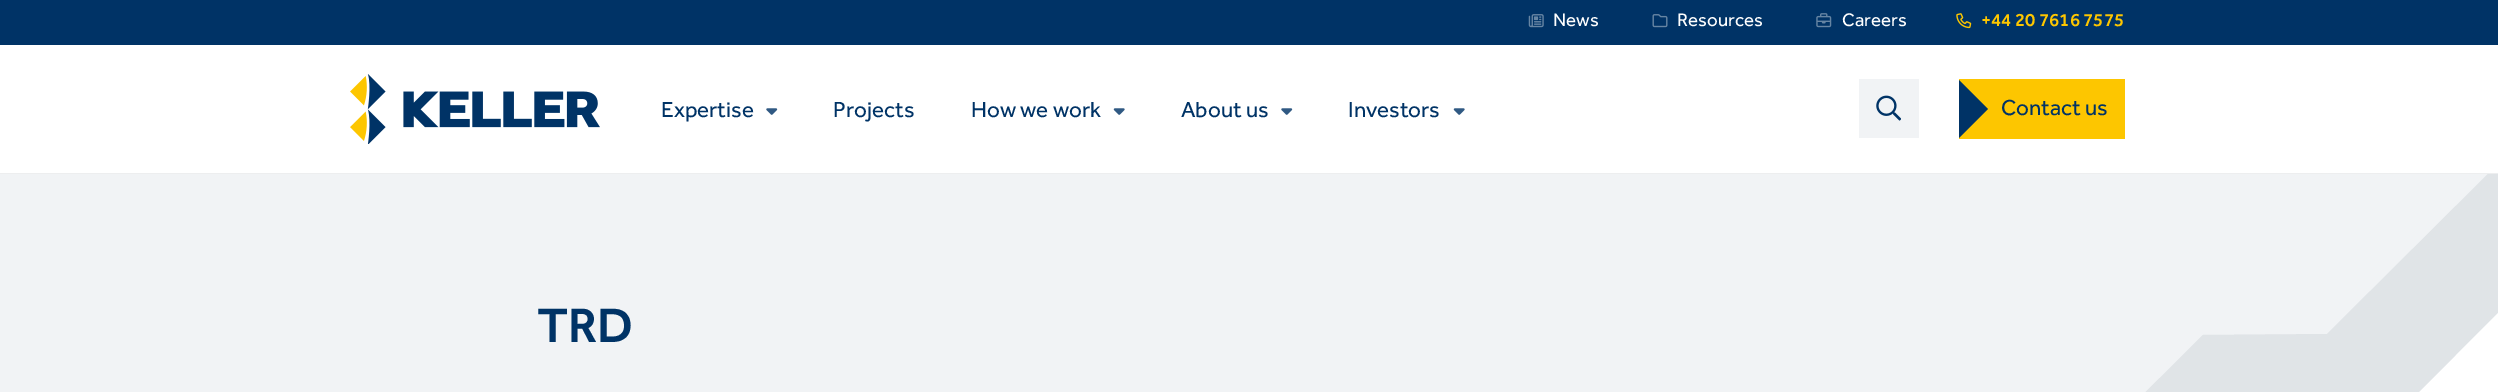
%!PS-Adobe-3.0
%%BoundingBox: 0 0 2498 392
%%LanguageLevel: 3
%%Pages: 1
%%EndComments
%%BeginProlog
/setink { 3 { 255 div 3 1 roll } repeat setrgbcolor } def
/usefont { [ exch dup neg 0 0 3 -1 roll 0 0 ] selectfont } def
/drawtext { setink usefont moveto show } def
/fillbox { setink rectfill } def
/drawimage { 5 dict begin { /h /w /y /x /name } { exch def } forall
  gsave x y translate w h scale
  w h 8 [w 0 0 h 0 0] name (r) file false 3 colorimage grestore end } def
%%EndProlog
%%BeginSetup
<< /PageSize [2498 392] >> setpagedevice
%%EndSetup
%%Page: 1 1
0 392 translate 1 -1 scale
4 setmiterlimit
0 0 2498 392 255 255 255 fillbox
0 0 2498 45 0 51 102 fillbox
(assets/img1.rgb) 1528 14 16 14 drawimage
(News) 1553 26 /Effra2-Regular 18.75 255 255 255 drawtext
(assets/img2.rgb) 1652 14 16 14 drawimage
(Resources) 1677 26 /Effra2-Regular 18.75 255 255 255 drawtext
(assets/img3.rgb) 1816 13 16 15 drawimage
(Careers) 1842 26 /Effra2-Regular 18.75 255 255 255 drawtext
(assets/img4.rgb) 1956 13 16 16 drawimage
(+44 20 7616 7575) 1981 26 /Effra-Regular 18.75 253 198 0 drawtext
0 173 2498 1 237 238 239 fillbox
(assets/img5.rgb) 350 74 250 70 drawimage
(Expertise) 661 117 /Effra2-Regular 22.5 0 51 102 drawtext
(assets/img6.rgb) 766 108 12 7 drawimage
(Projects) 833 117 /Effra2-Regular 22.5 0 51 102 drawtext
(How we work) 971 117 /Effra2-Regular 22.5 0 51 102 drawtext
(assets/img7.rgb) 1113 108 12 7 drawimage
(About us) 1181 117 /Effra2-Regular 22.5 0 51 102 drawtext
(assets/img6.rgb) 1281 108 12 7 drawimage
(Investors) 1348 117 /Effra2-Regular 22.5 0 51 102 drawtext
(assets/img7.rgb) 1453 108 12 7 drawimage
1859 79 60 59 241 243 245 fillbox
(assets/img8.rgb) 1876 95 25 26 drawimage
1959 79 166 60 253 198 0 fillbox
gsave
1959 79 30 60 rectclip
0 51 102 setink
1928 109 moveto 1958 79 lineto 1988 109 lineto 1958 139 lineto closepath eofill
grestore
(Contact us) 2001 115 /Effra2-Regular 22.5 0 51 102 drawtext
0 174 2488 218 241 243 245 fillbox
gsave
699 174 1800 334 rectclip
224 228 231 setink
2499 163 moveto 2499 336 lineto 2328 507 lineto 2030 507 lineto 2203 335 lineto 2327 334 lineto closepath eofill
grestore
255 255 255 setink
2131 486 moveto 2153 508 lineto 699 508 lineto 699 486 lineto closepath 2175 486 moveto 2326 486 lineto 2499 312 lineto 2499 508 lineto 2153 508 lineto closepath eofill
(TRD) 537 342 /Effra-Regular 50 0 51 102 drawtext
showpage
%%EOF
